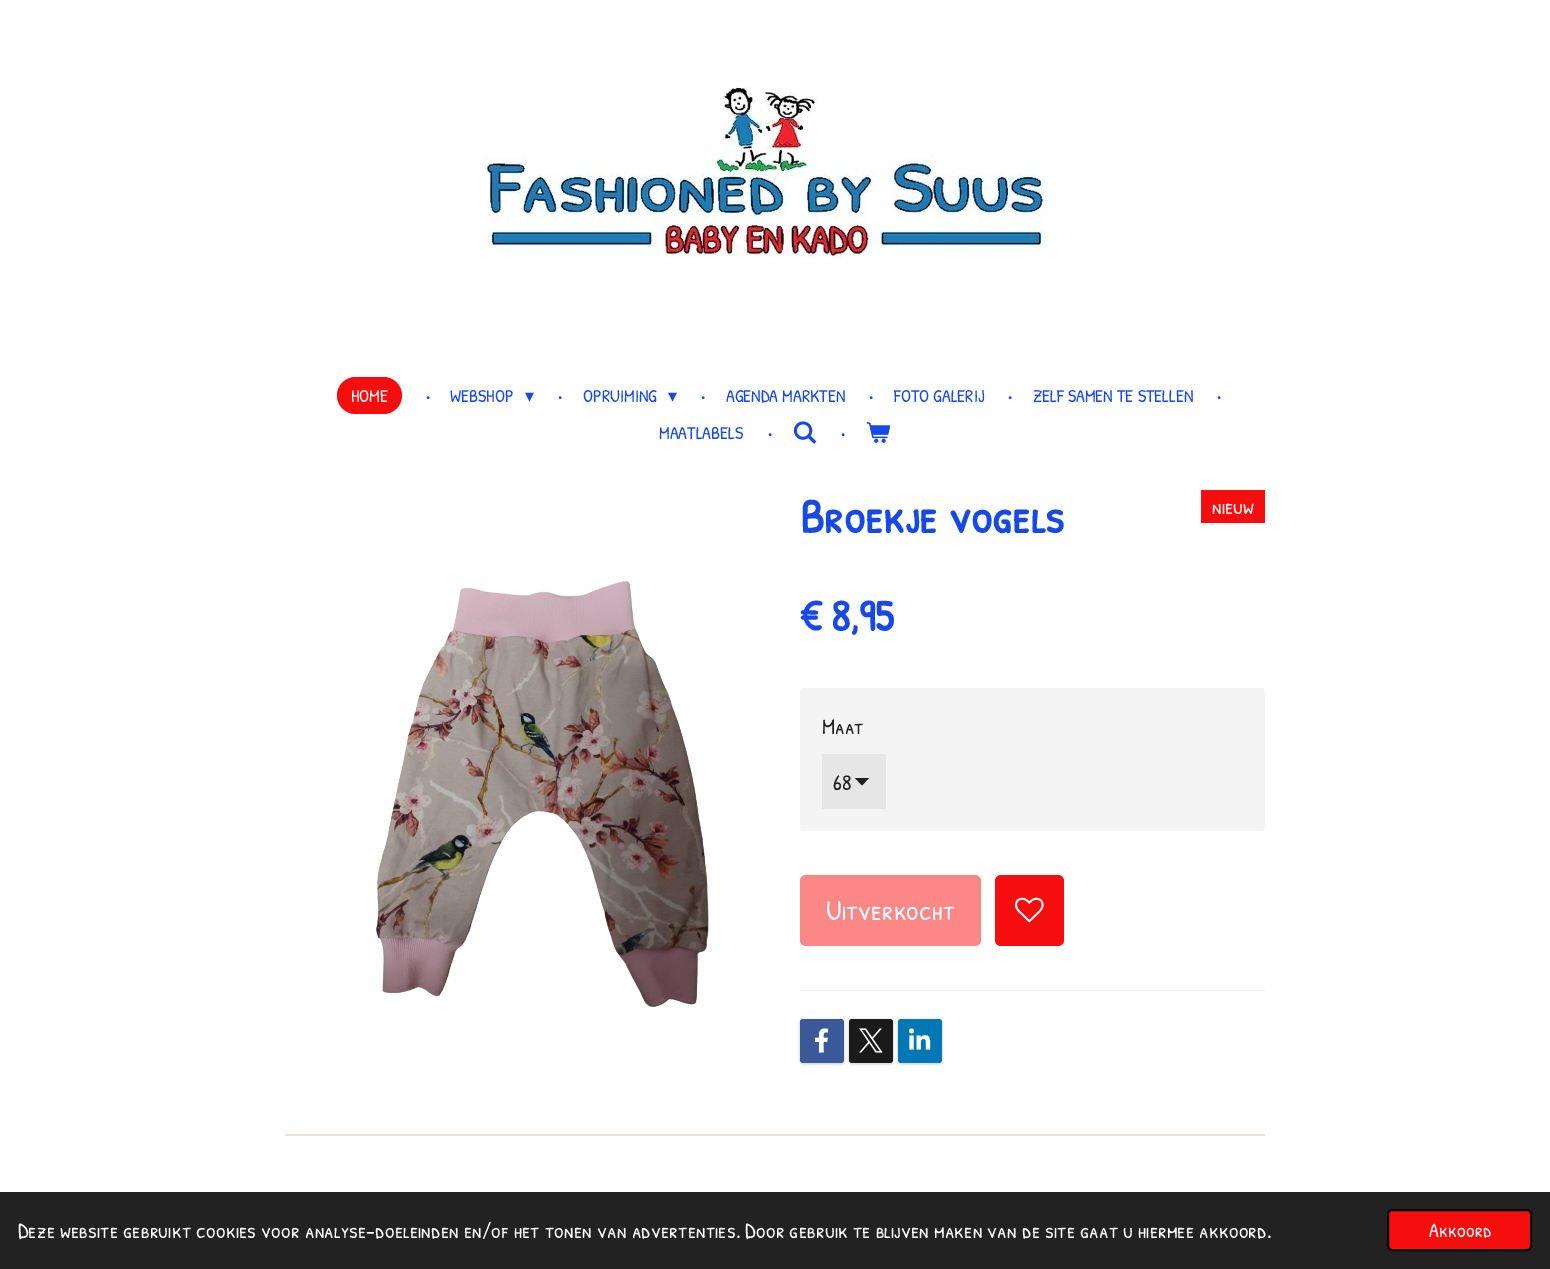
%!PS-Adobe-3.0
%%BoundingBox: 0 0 1550 1269
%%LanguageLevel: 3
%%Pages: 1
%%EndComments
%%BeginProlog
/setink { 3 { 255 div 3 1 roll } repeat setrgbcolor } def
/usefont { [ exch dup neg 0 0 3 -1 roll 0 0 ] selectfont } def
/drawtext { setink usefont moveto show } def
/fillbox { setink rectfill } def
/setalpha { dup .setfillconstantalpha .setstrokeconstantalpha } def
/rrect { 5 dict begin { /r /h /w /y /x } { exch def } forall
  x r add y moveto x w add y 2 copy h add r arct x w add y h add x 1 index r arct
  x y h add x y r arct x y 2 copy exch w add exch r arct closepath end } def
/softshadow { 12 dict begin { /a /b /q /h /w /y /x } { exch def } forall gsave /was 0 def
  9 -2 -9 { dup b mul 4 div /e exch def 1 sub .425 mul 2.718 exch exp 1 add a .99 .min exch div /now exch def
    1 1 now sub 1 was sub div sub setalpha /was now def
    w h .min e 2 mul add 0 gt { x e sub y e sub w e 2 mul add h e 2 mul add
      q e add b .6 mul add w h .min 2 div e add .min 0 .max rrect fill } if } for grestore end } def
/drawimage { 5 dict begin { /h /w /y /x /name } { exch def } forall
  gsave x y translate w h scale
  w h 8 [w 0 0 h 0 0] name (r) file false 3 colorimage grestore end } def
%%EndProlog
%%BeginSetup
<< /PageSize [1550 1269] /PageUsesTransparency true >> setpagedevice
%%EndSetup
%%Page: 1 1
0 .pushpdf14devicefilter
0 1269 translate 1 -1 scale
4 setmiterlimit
0 0 1550 1269 255 255 255 fillbox
(assets/img1.rgb) 485 86 561 173 drawimage
246 14 14 setink
337 377 65 37 18.5 rrect fill
(HOME) 351 402 /PatrickHandSC-Regular 18 255 255 255 drawtext
(•) 425 402 /PatrickHandSC-Regular 18 23 73 231 drawtext
(WEBSHOP) 450 402 /PatrickHandSC-Regular 18 23 73 231 drawtext
(▾) 525 402 /DejaVuSans-Regular 18 23 73 231 drawtext
(•) 557 402 /PatrickHandSC-Regular 18 23 73 231 drawtext
(OPRUIMING) 583 402 /PatrickHandSC-Regular 18 23 73 231 drawtext
(▾) 668 402 /DejaVuSans-Regular 18 23 73 231 drawtext
(•) 700 402 /PatrickHandSC-Regular 18 23 73 231 drawtext
(AGENDA MARKTEN) 726 402 /PatrickHandSC-Regular 18 23 73 231 drawtext
(•) 868 402 /PatrickHandSC-Regular 18 23 73 231 drawtext
(FOTO GALERIJ) 894 402 /PatrickHandSC-Regular 18 23 73 231 drawtext
(•) 1007 402 /PatrickHandSC-Regular 18 23 73 231 drawtext
(ZELF SAMEN TE STELLEN) 1033 402 /PatrickHandSC-Regular 18 23 73 231 drawtext
(•) 1216 402 /PatrickHandSC-Regular 18 23 73 231 drawtext
(MAATLABELS) 659 439 /PatrickHandSC-Regular 18 23 73 231 drawtext
(•) 767 439 /PatrickHandSC-Regular 18 23 73 231 drawtext
(assets/img2.rgb) 793 421 24 23 drawimage
(•) 840 439 /PatrickHandSC-Regular 18 23 73 231 drawtext
(assets/img3.rgb) 866 422 25 21 drawimage
(Broekje vogels) 800 533 /PatrickHandSC-Bold 48 23 73 231 drawtext
1201 490 64 33 246 14 14 fillbox
(nieuw) 1212 514 /PatrickHandSC-Regular 22 255 255 255 drawtext
(assets/img4.rgb) 376 581 333 426 drawimage
(€ 8,95) 800 631 /PatrickHandSC-Bold 44 23 73 231 drawtext
244 244 244 setink
800 688 465 143 4 rrect fill
(Maat) 822 734 /PatrickHandSC-Regular 22 32 32 32 drawtext
822 754 64 55 230 230 230 fillbox
32 32 32 setink
862 785.5 moveto 855 778 lineto 869 778 lineto closepath fill
(68) 833 790 /PatrickHandSC-Regular 22 32 32 32 drawtext
251 135 135 setink
800 875 181 71 6 rrect fill
(Uitverkocht) 826 920 /PatrickHandSC-Regular 28.5 255 255 255 drawtext
246 14 14 setink
995 875 69 71 6 rrect fill
(assets/img5.rgb) 1015 897 29 26 drawimage
800 990 465 1 239 239 239 fillbox
0 0 0 setink
800 1020 44 44 3 1.5 0.2 softshadow
59 89 152 setink
800 1019 44 44 3 rrect fill
(assets/img6.rgb) 815 1028 14 25 drawimage
0 0 0 setink
849 1020 44 44 3 1.5 0.2 softshadow
26 26 26 setink
849 1019 44 44 3 rrect fill
(assets/img7.rgb) 859 1028 24 25 drawimage
0 0 0 setink
898 1020 44 44 3 1.5 0.2 softshadow
0 119 181 setink
898 1019 44 44 3 rrect fill
(assets/img8.rgb) 909 1028 22 22 drawimage
285 1134 980 2 254 219 219 fillbox
0 1192 1550 77 34 34 34 fillbox
(Deze website gebruikt cookies voor analyse-doeleinden en/of het tonen van advertenties. Door gebruik te blijven maken van de site gaat u hiermee akkoord.) 18 1238 /PatrickHandSC-Regular 22 255 255 255 drawtext
246 14 14 setink
1388 1210 143 40 4 rrect gsave fill grestore
0 0 0 setink
2 setlinewidth
stroke
(Akkoord) 1429 1237 /PatrickHandSC-Regular 20 255 255 255 drawtext
.poppdf14devicefilter showpage
%%EOF
